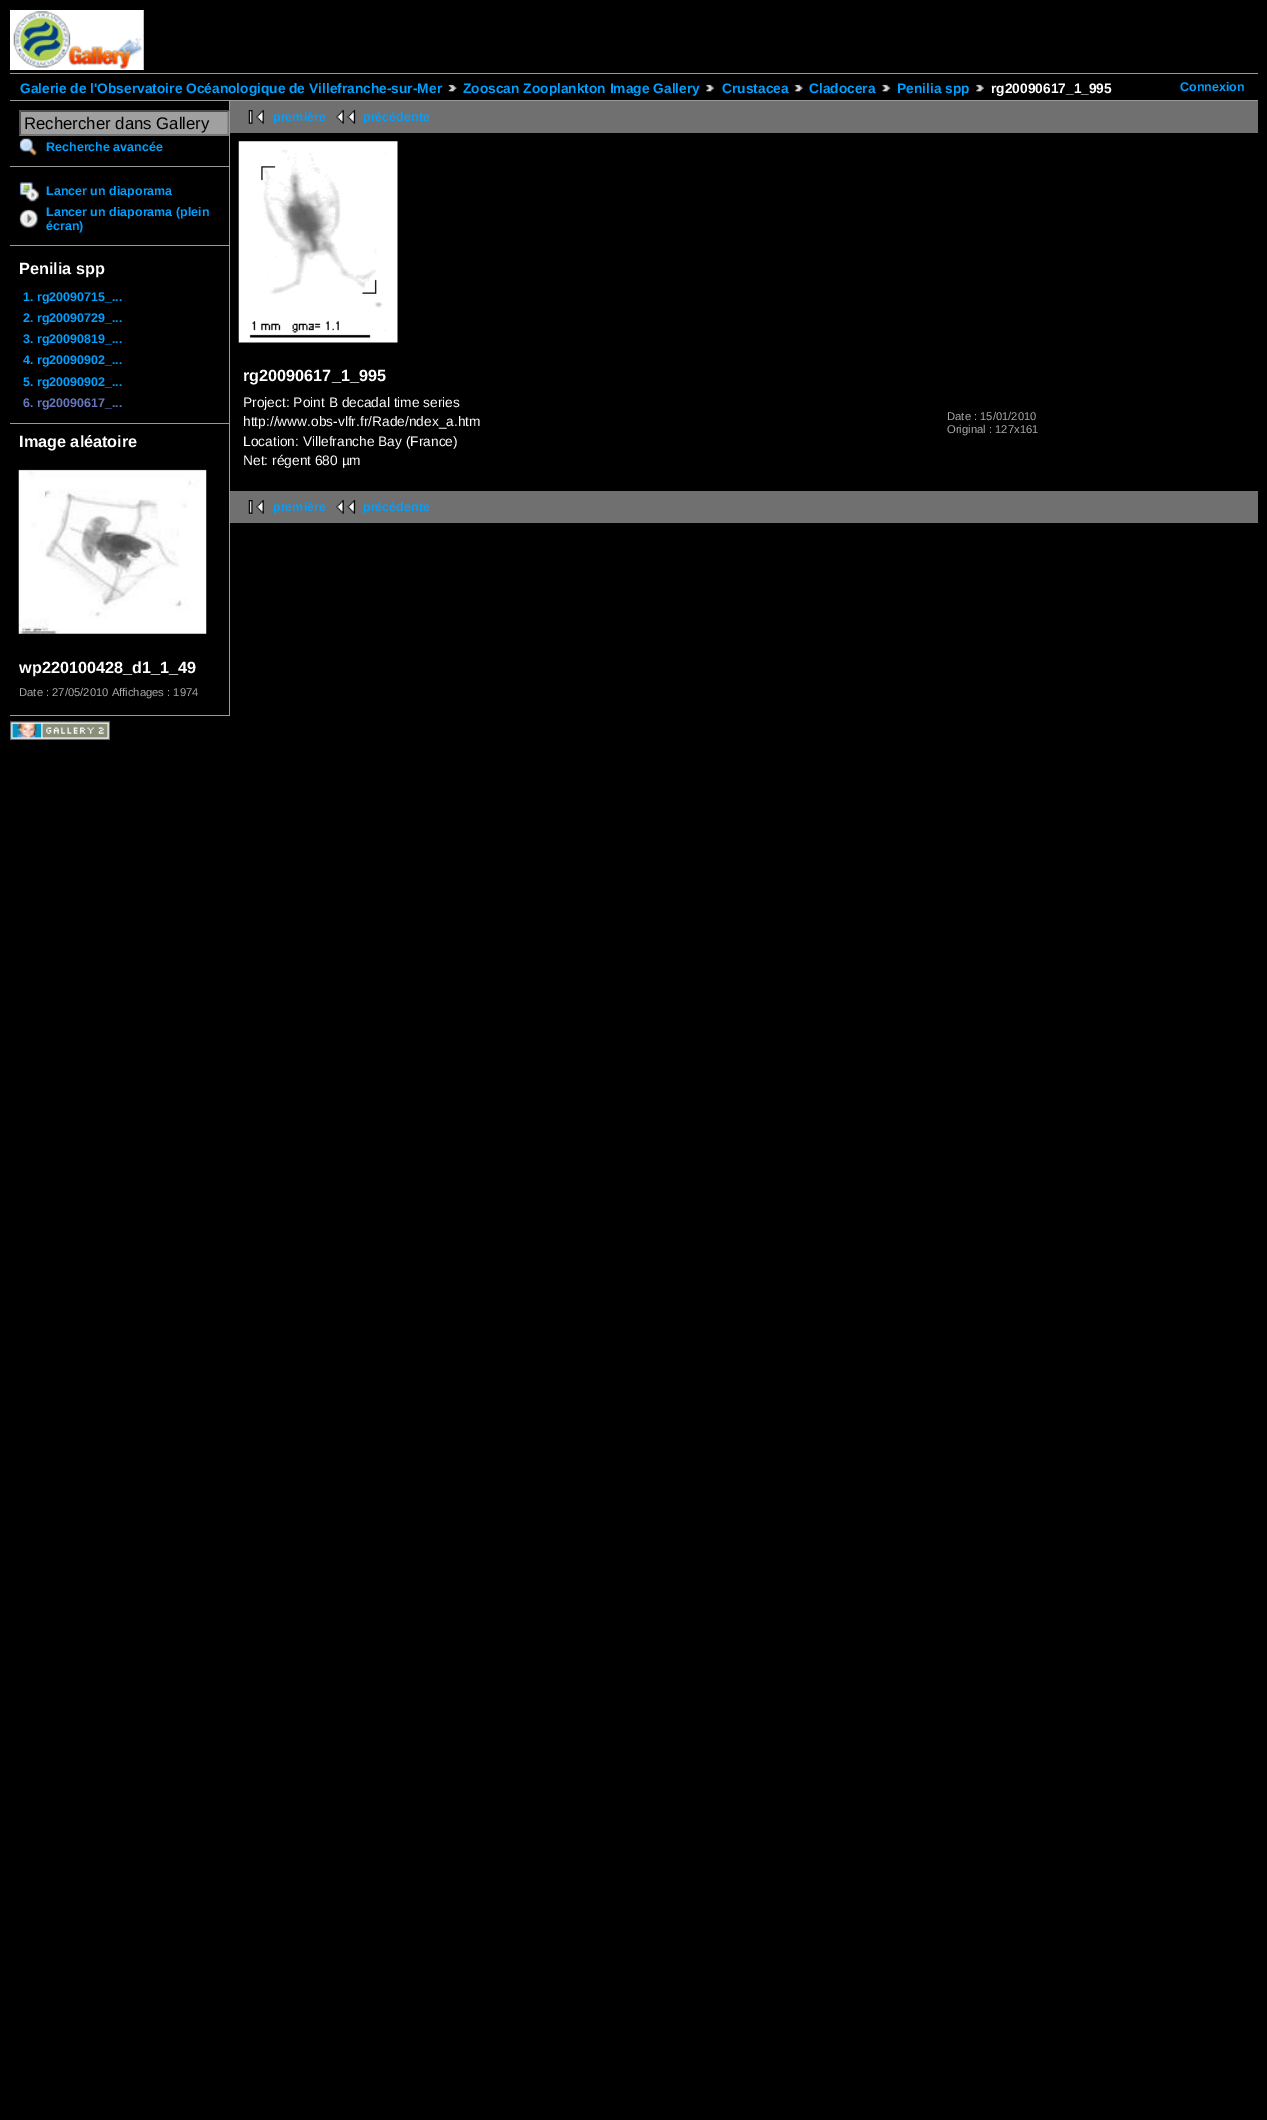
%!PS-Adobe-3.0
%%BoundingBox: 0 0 1267 2120
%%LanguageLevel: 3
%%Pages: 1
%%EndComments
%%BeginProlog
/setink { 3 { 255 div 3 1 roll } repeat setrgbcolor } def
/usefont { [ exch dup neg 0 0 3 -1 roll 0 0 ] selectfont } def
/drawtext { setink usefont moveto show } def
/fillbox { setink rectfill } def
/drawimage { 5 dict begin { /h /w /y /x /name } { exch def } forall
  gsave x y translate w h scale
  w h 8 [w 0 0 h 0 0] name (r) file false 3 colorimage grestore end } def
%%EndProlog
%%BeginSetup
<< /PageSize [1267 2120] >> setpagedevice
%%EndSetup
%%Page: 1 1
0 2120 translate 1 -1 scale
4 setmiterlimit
0 0 1267 2120 0 0 0 fillbox
(assets/img1.rgb) 10 10 134 60 drawimage
10 73 1248 1 153 153 153 fillbox
10 100 1248 1 153 153 153 fillbox
(Galerie de l'Observatoire Océanologique de Villefranche-sur-Mer) 20 93 /LiberationSans-Bold 13.75 0 160 255 drawtext
(assets/img2.rgb) 448 84 9 8 drawimage
(Zooscan Zooplankton Image Gallery) 463 93 /LiberationSans-Bold 13.75 0 160 255 drawtext
(assets/img3.rgb) 706 84 8 8 drawimage
(Crustacea) 722 93 /LiberationSans-Bold 13.75 0 160 255 drawtext
(assets/img4.rgb) 794 84 9 8 drawimage
(Cladocera) 809 93 /LiberationSans-Bold 13.75 0 160 255 drawtext
(assets/img5.rgb) 882 84 9 8 drawimage
(Penilia spp) 897 93 /LiberationSans-Bold 13.75 0 160 255 drawtext
(assets/img3.rgb) 976 84 8 8 drawimage
(rg20090617_1_995) 991 93 /LiberationSans-Bold 13.75 255 255 255 drawtext
(Connexion) 1180 91 /LiberationSans-Bold 12.5 0 160 255 drawtext
229 101 1 615 153 153 153 fillbox
10 166 219 1 153 153 153 fillbox
19 110 210 26 160 160 160 fillbox
79 79 79 setink
19 110 moveto 230 110 lineto 228 112 lineto 21 112 lineto closepath fill
gsave
10 101 219 615 rectclip
118 118 118 setink
230 110 moveto 230 136 lineto 227.5 134 lineto 227.5 112.5 lineto closepath fill
grestore
118 118 118 setink
230 136 moveto 19 136 lineto 21 134 lineto 228 134 lineto closepath fill
79 79 79 setink
19 136 moveto 19 110 lineto 21 112.5 lineto 21 134 lineto closepath fill
(Rechercher dans Gallery) 24 129 /LiberationSans-Regular 16.75 0 0 0 drawtext
(assets/img6.rgb) 19 138 18 19 drawimage
(Recherche avancée) 46 151 /LiberationSans-Bold 12.5 0 160 255 drawtext
10 245 219 1 153 153 153 fillbox
(assets/img7.rgb) 19 182 20 20 drawimage
(Lancer un diaporama) 46 195 /LiberationSans-Bold 12.5 0 160 255 drawtext
(assets/img8.rgb) 19 209 19 19 drawimage
(Lancer un diaporama \(plein) 46 216 /LiberationSans-Bold 12.5 0 160 255 drawtext
(écran\)) 46 230 /LiberationSans-Bold 12.5 0 160 255 drawtext
10 423 219 1 153 153 153 fillbox
(Penilia spp) 19 274 /LiberationSans-Bold 16.25 255 255 255 drawtext
(1. rg20090715_...) 23 301 /LiberationSans-Bold 12.5 0 160 255 drawtext
(2. rg20090729_...) 23 322 /LiberationSans-Bold 12.5 0 160 255 drawtext
(3. rg20090819_...) 23 343 /LiberationSans-Bold 12.5 0 160 255 drawtext
(4. rg20090902_...) 23 364 /LiberationSans-Bold 12.5 0 160 255 drawtext
(5. rg20090902_...) 23 386 /LiberationSans-Bold 12.5 0 160 255 drawtext
(6. rg20090617_...) 23 407 /LiberationSans-Bold 12.5 102 119 187 drawtext
10 715 219 1 153 153 153 fillbox
(Image aléatoire) 19 447 /LiberationSans-Bold 16.25 255 255 255 drawtext
(assets/img9.rgb) 18 469 189 167 drawimage
(wp220100428_d1_1_49) 19 673 /LiberationSans-Bold 16.25 255 255 255 drawtext
(Date : 27/05/2010 Affichages : 1974) 19 696 /LiberationSans-Regular 11.25 170 170 170 drawtext
230 101 1028 32 112 112 112 fillbox
(assets/img10.rgb) 248 110 16 14 drawimage
(première) 273 121 /LiberationSans-Bold 12.5 0 160 255 drawtext
(assets/img11.rgb) 336 110 20 14 drawimage
(précédente) 363 121 /LiberationSans-Bold 12.5 0 160 255 drawtext
(assets/img12.rgb) 238 141 160 202 drawimage
(rg20090617_1_995) 243 381 /LiberationSans-Bold 16.25 255 255 255 drawtext
(Project: Point B decadal time series) 243 407 /LiberationSans-Regular 13.75 255 255 255 drawtext
(http://www.obs-vlfr.fr/Rade/ndex_a.htm) 243 426 /LiberationSans-Regular 13.75 255 255 255 drawtext
(Location: Villefranche Bay \(France\)) 243 446 /LiberationSans-Regular 13.75 255 255 255 drawtext
(Net: régent 680 µm) 243 465 /LiberationSans-Regular 13.75 255 255 255 drawtext
(Date : 15/01/2010) 947 420 /LiberationSans-Regular 11.25 170 170 170 drawtext
(Original : 127x161) 947 433 /LiberationSans-Regular 11.25 170 170 170 drawtext
230 491 1028 32 112 112 112 fillbox
(assets/img10.rgb) 248 500 16 14 drawimage
(première) 273 511 /LiberationSans-Bold 12.5 0 160 255 drawtext
(assets/img11.rgb) 336 500 20 14 drawimage
(précédente) 363 511 /LiberationSans-Bold 12.5 0 160 255 drawtext
(assets/img13.rgb) 10 721 100 19 drawimage
showpage
%%EOF
